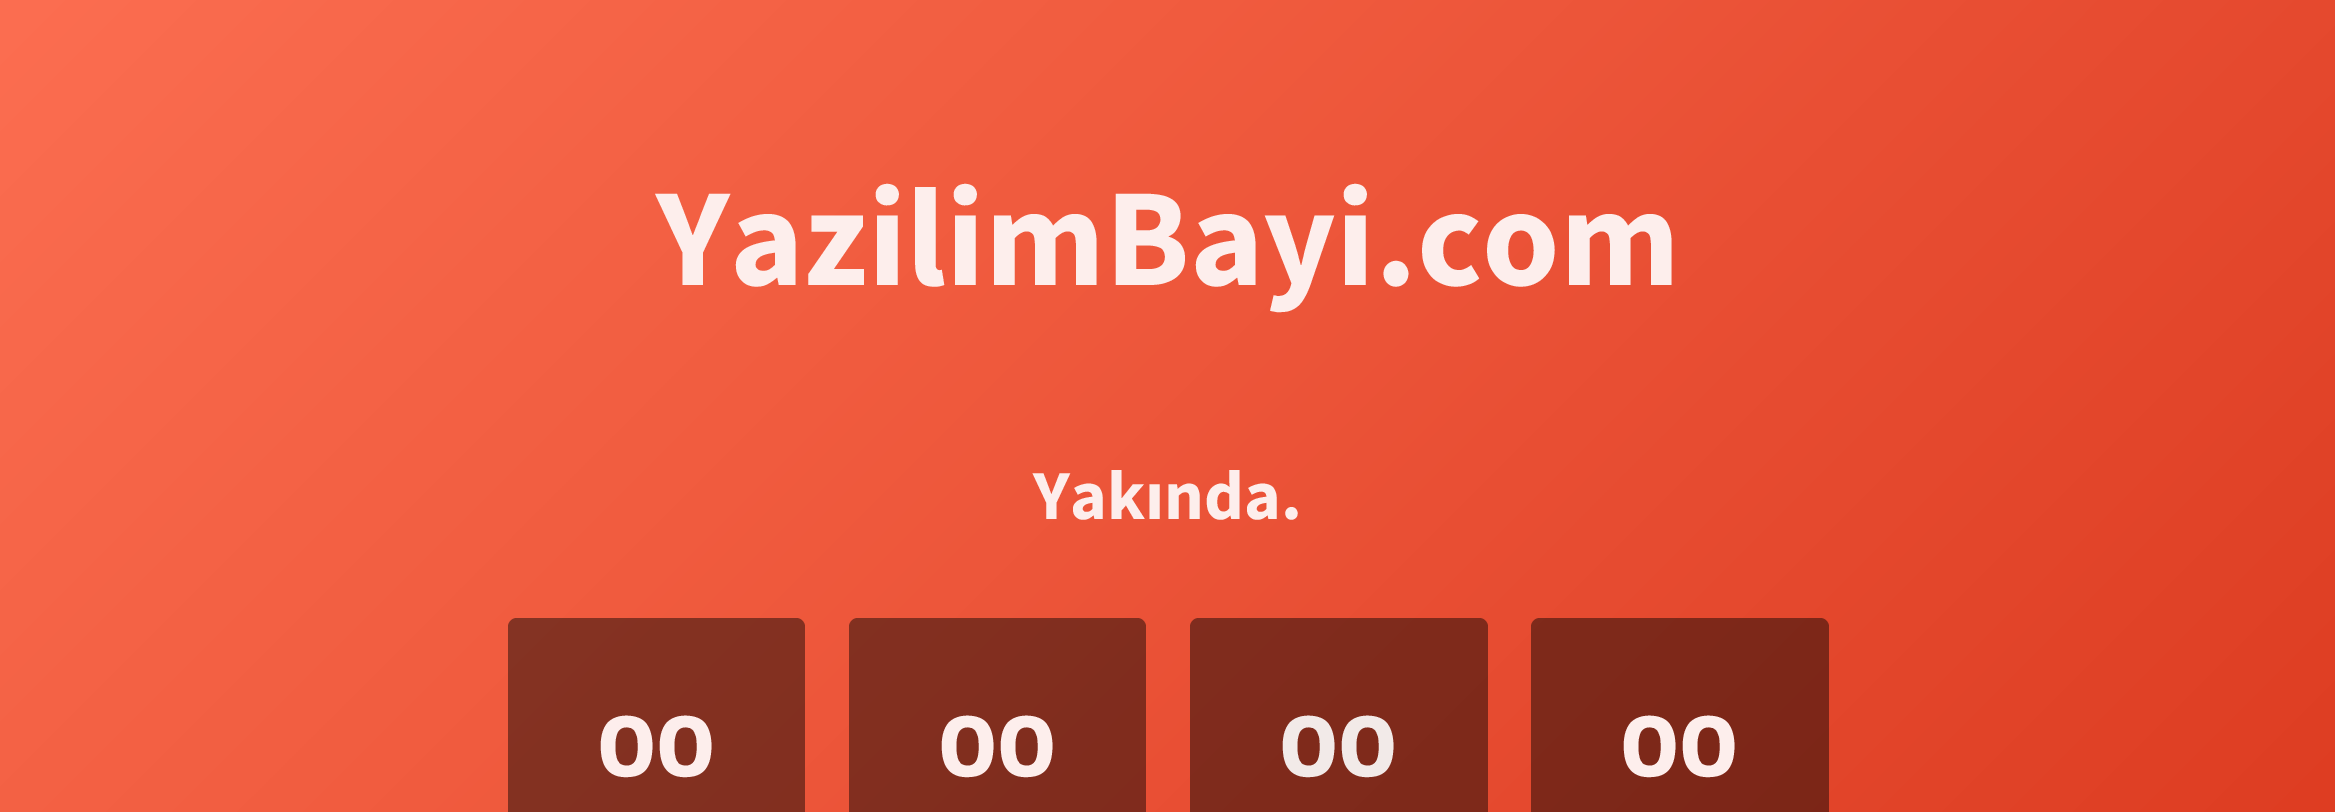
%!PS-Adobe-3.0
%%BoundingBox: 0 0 2335 812
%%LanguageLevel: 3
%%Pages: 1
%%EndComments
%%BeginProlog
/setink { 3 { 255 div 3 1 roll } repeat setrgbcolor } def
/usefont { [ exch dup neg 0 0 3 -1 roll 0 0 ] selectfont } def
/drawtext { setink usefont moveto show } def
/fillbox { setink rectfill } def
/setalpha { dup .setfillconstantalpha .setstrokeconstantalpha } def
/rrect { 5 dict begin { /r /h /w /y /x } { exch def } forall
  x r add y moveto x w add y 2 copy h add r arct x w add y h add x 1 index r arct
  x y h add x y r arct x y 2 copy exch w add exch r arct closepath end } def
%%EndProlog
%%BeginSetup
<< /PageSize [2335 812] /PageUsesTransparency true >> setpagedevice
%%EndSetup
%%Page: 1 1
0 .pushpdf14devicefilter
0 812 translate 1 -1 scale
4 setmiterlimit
0 0 2335 812 255 255 255 fillbox
gsave 0 0 moveto 2335 0 lineto 2335 812 lineto 0 812 lineto closepath clip newpath
<< /ShadingType 2 /ColorSpace /DeviceRGB /Coords [315 -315 2021 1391] /Extend [true true] /Function << /FunctionType 2 /Domain [0 1] /C0 [0.988 0.431 0.318] /C1 [0.859 0.224 0.118] /N 1 >> >> shfill grestore
(YazilimBayi.com) 656 285 /SourceSansPro-Bold 140 253 238 236 drawtext
(Yakında.) 1033 519 /SourceSansPro-Bold 70 253 238 236 drawtext
0.45 setalpha
0 0 0 setink
508 618 297 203 9 rrect fill
1 setalpha
(00) 597 776 /MavenPro-Bold 89 253 238 236 drawtext
0.45 setalpha
0 0 0 setink
849 618 297 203 9 rrect fill
1 setalpha
(00) 938 776 /MavenPro-Bold 89 253 238 236 drawtext
0.45 setalpha
0 0 0 setink
1190 618 298 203 9 rrect fill
1 setalpha
(00) 1279 776 /MavenPro-Bold 89 242 234 232 drawtext
0.45 setalpha
0 0 0 setink
1531 618 298 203 9 rrect fill
1 setalpha
(00) 1620 776 /MavenPro-Bold 89 253 238 236 drawtext
.poppdf14devicefilter showpage
%%EOF
